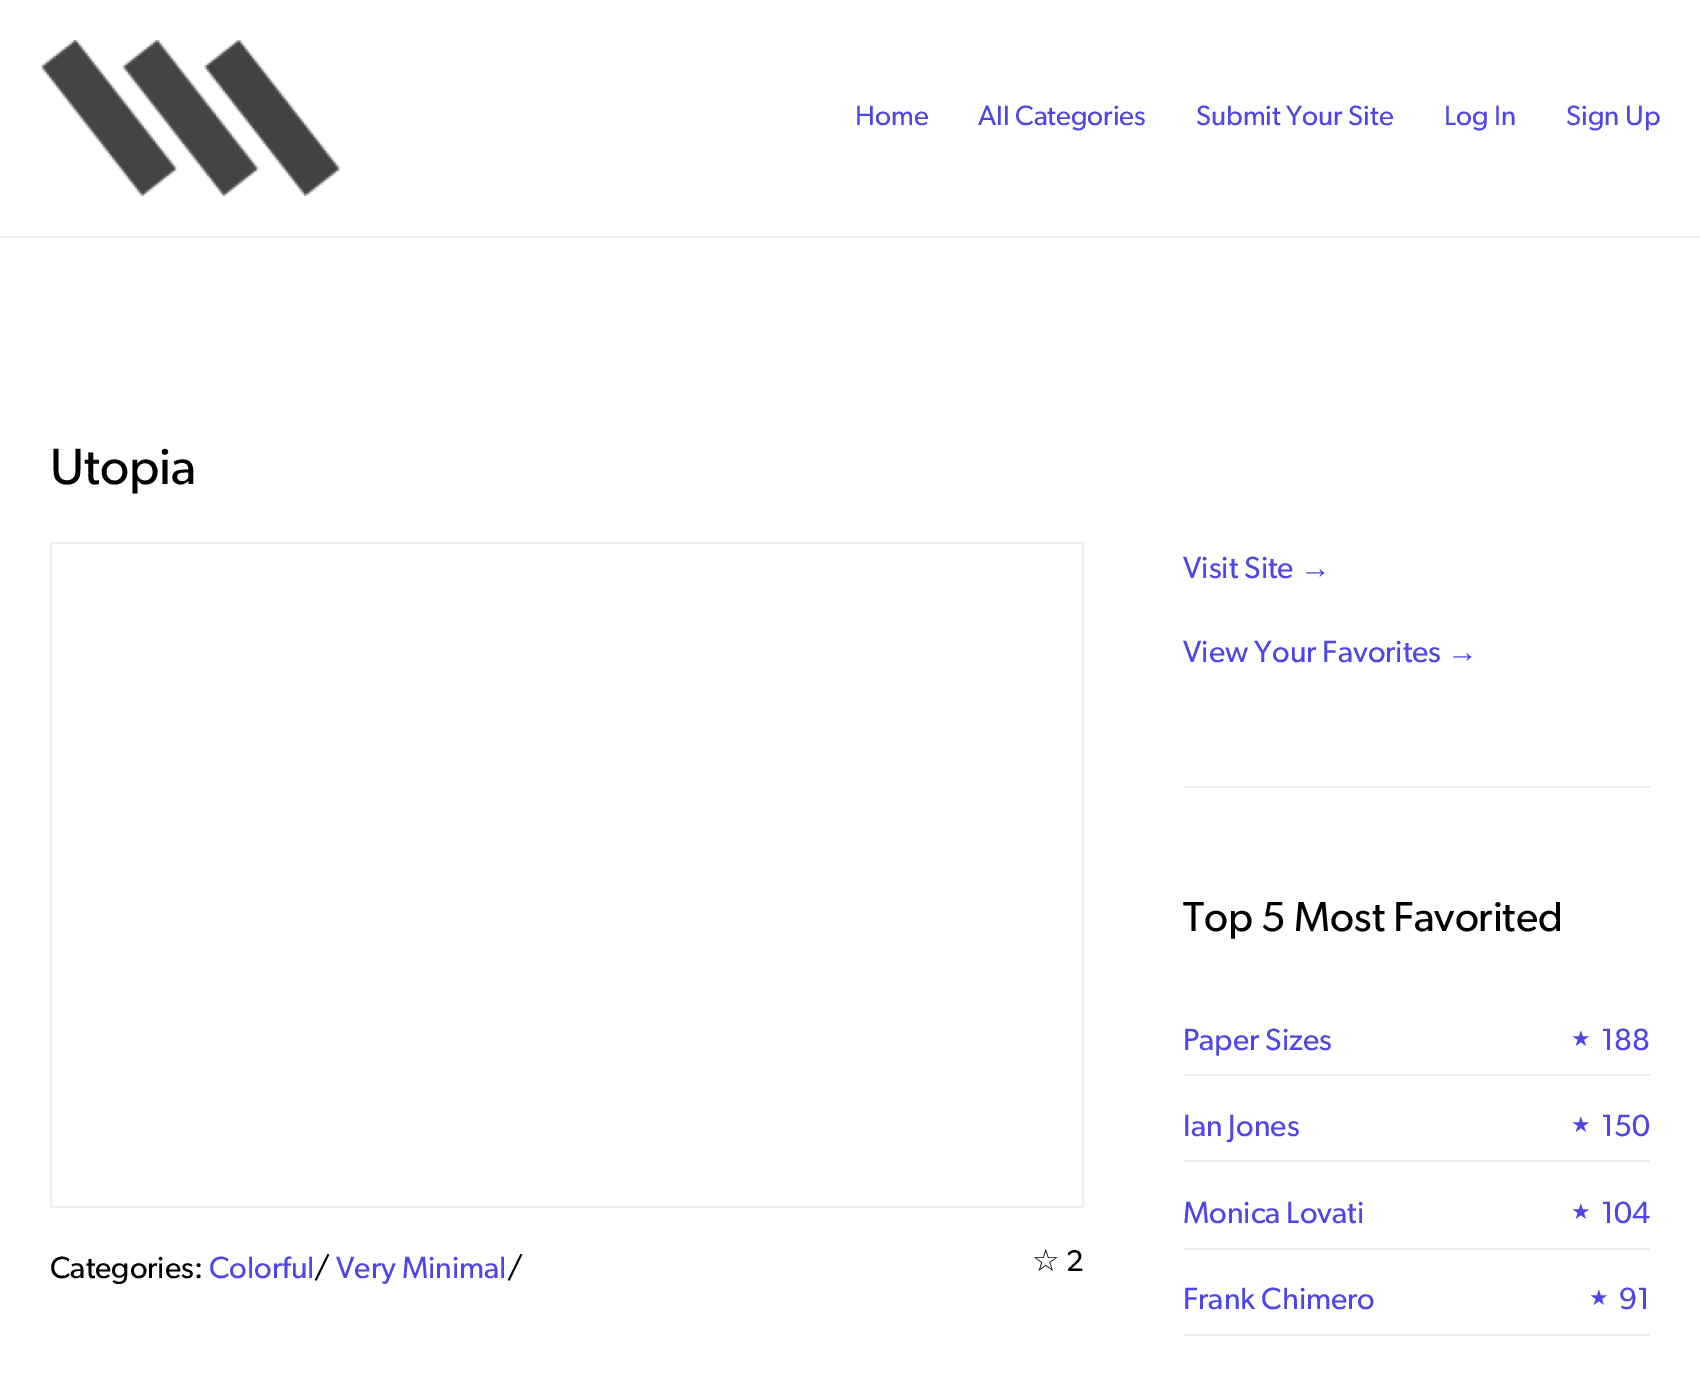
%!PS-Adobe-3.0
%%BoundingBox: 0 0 1700 1382
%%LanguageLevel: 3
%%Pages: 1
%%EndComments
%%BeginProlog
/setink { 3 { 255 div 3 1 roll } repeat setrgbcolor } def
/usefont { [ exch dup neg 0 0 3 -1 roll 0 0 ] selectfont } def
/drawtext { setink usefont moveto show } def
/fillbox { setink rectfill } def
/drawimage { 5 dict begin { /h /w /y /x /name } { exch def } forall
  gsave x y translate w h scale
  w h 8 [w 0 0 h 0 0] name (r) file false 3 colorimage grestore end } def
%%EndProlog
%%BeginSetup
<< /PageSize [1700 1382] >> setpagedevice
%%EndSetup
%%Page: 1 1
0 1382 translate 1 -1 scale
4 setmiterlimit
0 0 1700 1382 255 255 255 fillbox
0 236 1700 2 238 238 238 fillbox
(assets/img1.rgb) 40 40 300 156 drawimage
(Home) 855 125 /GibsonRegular-Regular 28 79 70 229 drawtext
(All Categories) 978 125 /GibsonRegular-Regular 28 79 70 229 drawtext
(Submit Your Site) 1196 125 /GibsonRegular-Regular 28 79 70 229 drawtext
(Log In) 1444 125 /GibsonRegular-Regular 28 79 70 229 drawtext
(Sign Up) 1566 125 /GibsonRegular-Regular 28 79 70 229 drawtext
(Utopia) 50 484 /GibsonRegular-Regular 51 0 0 0 drawtext
238 238 238 setink
2 setlinewidth
51 543 1032 664 rectstroke
(Categories:) 50 1278 /GibsonRegular-Regular 30.75 0 0 0 drawtext
(Colorful) 209 1278 /GibsonRegular-Regular 30.75 79 70 229 drawtext
(/) 314 1278 /GibsonRegular-Regular 30.75 0 0 0 drawtext
(Very Minimal) 336 1278 /GibsonRegular-Regular 30.75 79 70 229 drawtext
(/) 507 1278 /GibsonRegular-Regular 30.75 0 0 0 drawtext
(☆) 1032 1271 /DejaVuSans-Regular 30.75 0 0 0 drawtext
(2) 1066 1271 /GibsonRegular-Regular 30 0 0 0 drawtext
1184 786 466 2 238 238 238 fillbox
(Visit Site) 1183 578 /GibsonRegular-Regular 30.75 79 70 229 drawtext
(→) 1300 578 /LiberationSerif-Regular 30.75 79 70 229 drawtext
(View Your Favorites) 1183 662 /GibsonRegular-Regular 30.75 79 70 229 drawtext
(→) 1447 662 /LiberationSerif-Regular 30.75 79 70 229 drawtext
(Top 5 Most Favorited) 1183 931 /GibsonRegular-Regular 42 0 0 0 drawtext
1184 1074 466 2 238 238 238 fillbox
(Paper Sizes) 1183 1050 /GibsonRegular-Regular 30.75 79 70 229 drawtext
(★) 1571 1046 /DejaVuSans-Regular 22 79 70 229 drawtext
(188) 1601 1050 /GibsonRegular-Regular 30.75 79 70 229 drawtext
1184 1160 466 2 238 238 238 fillbox
(Ian Jones) 1183 1136 /GibsonRegular-Regular 30.75 79 70 229 drawtext
(★) 1571 1132 /DejaVuSans-Regular 22 79 70 229 drawtext
(150) 1601 1136 /GibsonRegular-Regular 30.75 79 70 229 drawtext
1184 1248 466 2 238 238 238 fillbox
(Monica Lovati) 1183 1223 /GibsonRegular-Regular 30.75 79 70 229 drawtext
(★) 1571 1219 /DejaVuSans-Regular 22 79 70 229 drawtext
(104) 1601 1223 /GibsonRegular-Regular 30.75 79 70 229 drawtext
1184 1334 466 2 238 238 238 fillbox
(Frank Chimero) 1183 1309 /GibsonRegular-Regular 30.75 79 70 229 drawtext
(★) 1589 1305 /DejaVuSans-Regular 22 79 70 229 drawtext
(91) 1619 1309 /GibsonRegular-Regular 30.75 79 70 229 drawtext
showpage
%%EOF
